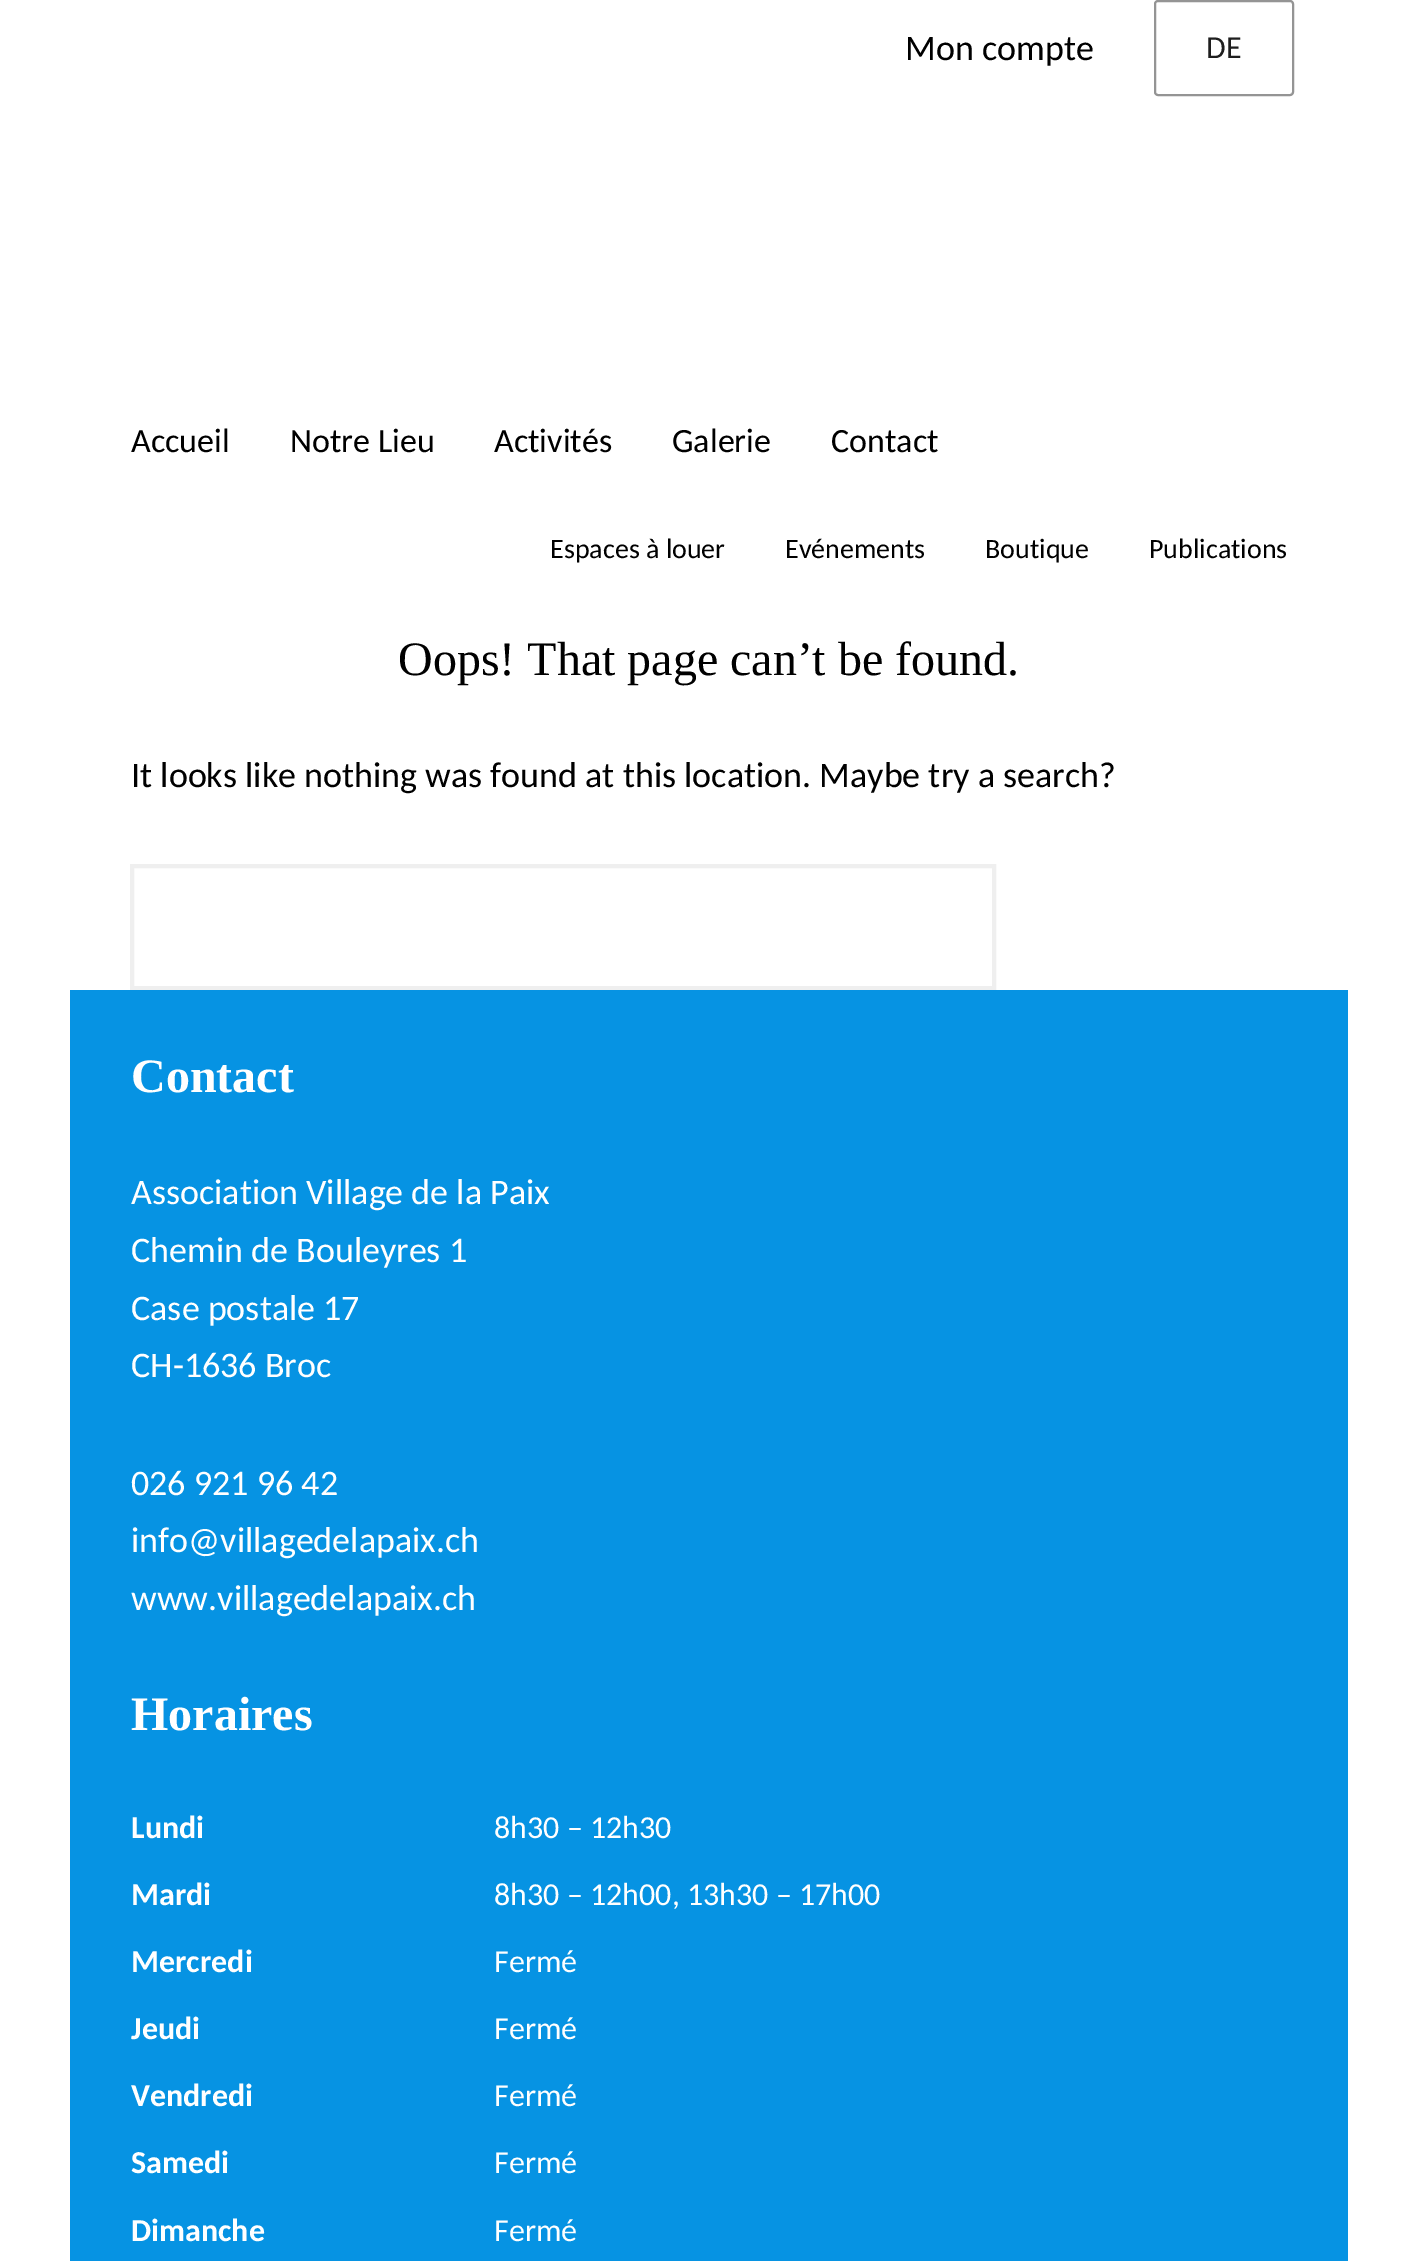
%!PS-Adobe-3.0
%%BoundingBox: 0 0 1417 2261
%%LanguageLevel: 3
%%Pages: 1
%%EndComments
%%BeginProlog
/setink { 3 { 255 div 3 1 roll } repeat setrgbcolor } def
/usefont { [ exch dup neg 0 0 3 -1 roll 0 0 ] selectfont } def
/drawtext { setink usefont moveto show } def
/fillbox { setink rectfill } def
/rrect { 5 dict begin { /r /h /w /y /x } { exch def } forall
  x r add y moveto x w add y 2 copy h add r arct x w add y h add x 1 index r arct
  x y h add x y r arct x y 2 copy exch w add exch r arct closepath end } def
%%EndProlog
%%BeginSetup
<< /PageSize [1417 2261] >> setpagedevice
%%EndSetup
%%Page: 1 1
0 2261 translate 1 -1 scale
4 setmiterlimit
0 0 1417 2261 255 255 255 fillbox
(Mon compte) 905 60 /Carlito-Regular 36 0 0 0 drawtext
148 148 148 setink
2 setlinewidth
1155 1 138 94 3 rrect stroke
(DE) 1206 58 /Carlito-Regular 32 30 30 30 drawtext
(Accueil) 131 452 /Carlito-Regular 34 0 0 0 drawtext
(Notre Lieu) 290 452 /Carlito-Regular 34 0 0 0 drawtext
(Activités) 494 452 /Carlito-Regular 34 0 0 0 drawtext
(Galerie) 672 452 /Carlito-Regular 34 0 0 0 drawtext
(Contact) 831 452 /Carlito-Regular 34 0 0 0 drawtext
(Espaces à louer) 550 558 /Carlito-Regular 28 0 0 0 drawtext
(Evénements) 785 558 /Carlito-Regular 28 0 0 0 drawtext
(Boutique) 985 558 /Carlito-Regular 28 0 0 0 drawtext
(Publications) 1149 558 /Carlito-Regular 28 0 0 0 drawtext
(Oops! That page can’t be found.) 398 675 /LiberationSerif-Regular 48 0 0 0 drawtext
(It looks like nothing was found at this location. Maybe try a search?) 131 787 /Carlito-Regular 36 0 0 0 drawtext
239 239 239 setink
4 setlinewidth
132 866 862 122 rectstroke
70 990 1278 1271 6 147 227 fillbox
(Contact) 131 1092 /LiberationSerif-Bold 48 255 255 255 drawtext
(Association Village de la Paix) 131 1204 /Carlito-Regular 36 255 255 255 drawtext
(Chemin de Bouleyres 1) 131 1262 /Carlito-Regular 36 255 255 255 drawtext
(Case postale 17) 131 1320 /Carlito-Regular 36 255 255 255 drawtext
(CH-1636 Broc) 131 1377 /Carlito-Regular 36 255 255 255 drawtext
(026 921 96 42) 131 1495 /Carlito-Regular 36 255 255 255 drawtext
(info@villagedelapaix.ch) 131 1552 /Carlito-Regular 36 255 255 255 drawtext
(www.villagedelapaix.ch) 131 1610 /Carlito-Regular 36 255 255 255 drawtext
(Horaires) 131 1730 /LiberationSerif-Bold 48 255 255 255 drawtext
(Lundi) 131 1838 /Carlito-Bold 32 255 255 255 drawtext
(8h30 – 12h30) 494 1838 /Carlito-Regular 32 255 255 255 drawtext
(Mardi) 131 1905 /Carlito-Bold 32 255 255 255 drawtext
(8h30 – 12h00, 13h30 – 17h00) 494 1905 /Carlito-Regular 32 255 255 255 drawtext
(Mercredi) 131 1972 /Carlito-Bold 32 255 255 255 drawtext
(Fermé) 494 1972 /Carlito-Regular 32 255 255 255 drawtext
(Jeudi) 131 2039 /Carlito-Bold 32 255 255 255 drawtext
(Fermé) 494 2039 /Carlito-Regular 32 255 255 255 drawtext
(Vendredi) 131 2106 /Carlito-Bold 32 255 255 255 drawtext
(Fermé) 494 2106 /Carlito-Regular 32 255 255 255 drawtext
(Samedi) 131 2173 /Carlito-Bold 32 255 255 255 drawtext
(Fermé) 494 2173 /Carlito-Regular 32 255 255 255 drawtext
(Dimanche) 131 2241 /Carlito-Bold 32 255 255 255 drawtext
(Fermé) 494 2241 /Carlito-Regular 32 255 255 255 drawtext
showpage
%%EOF
